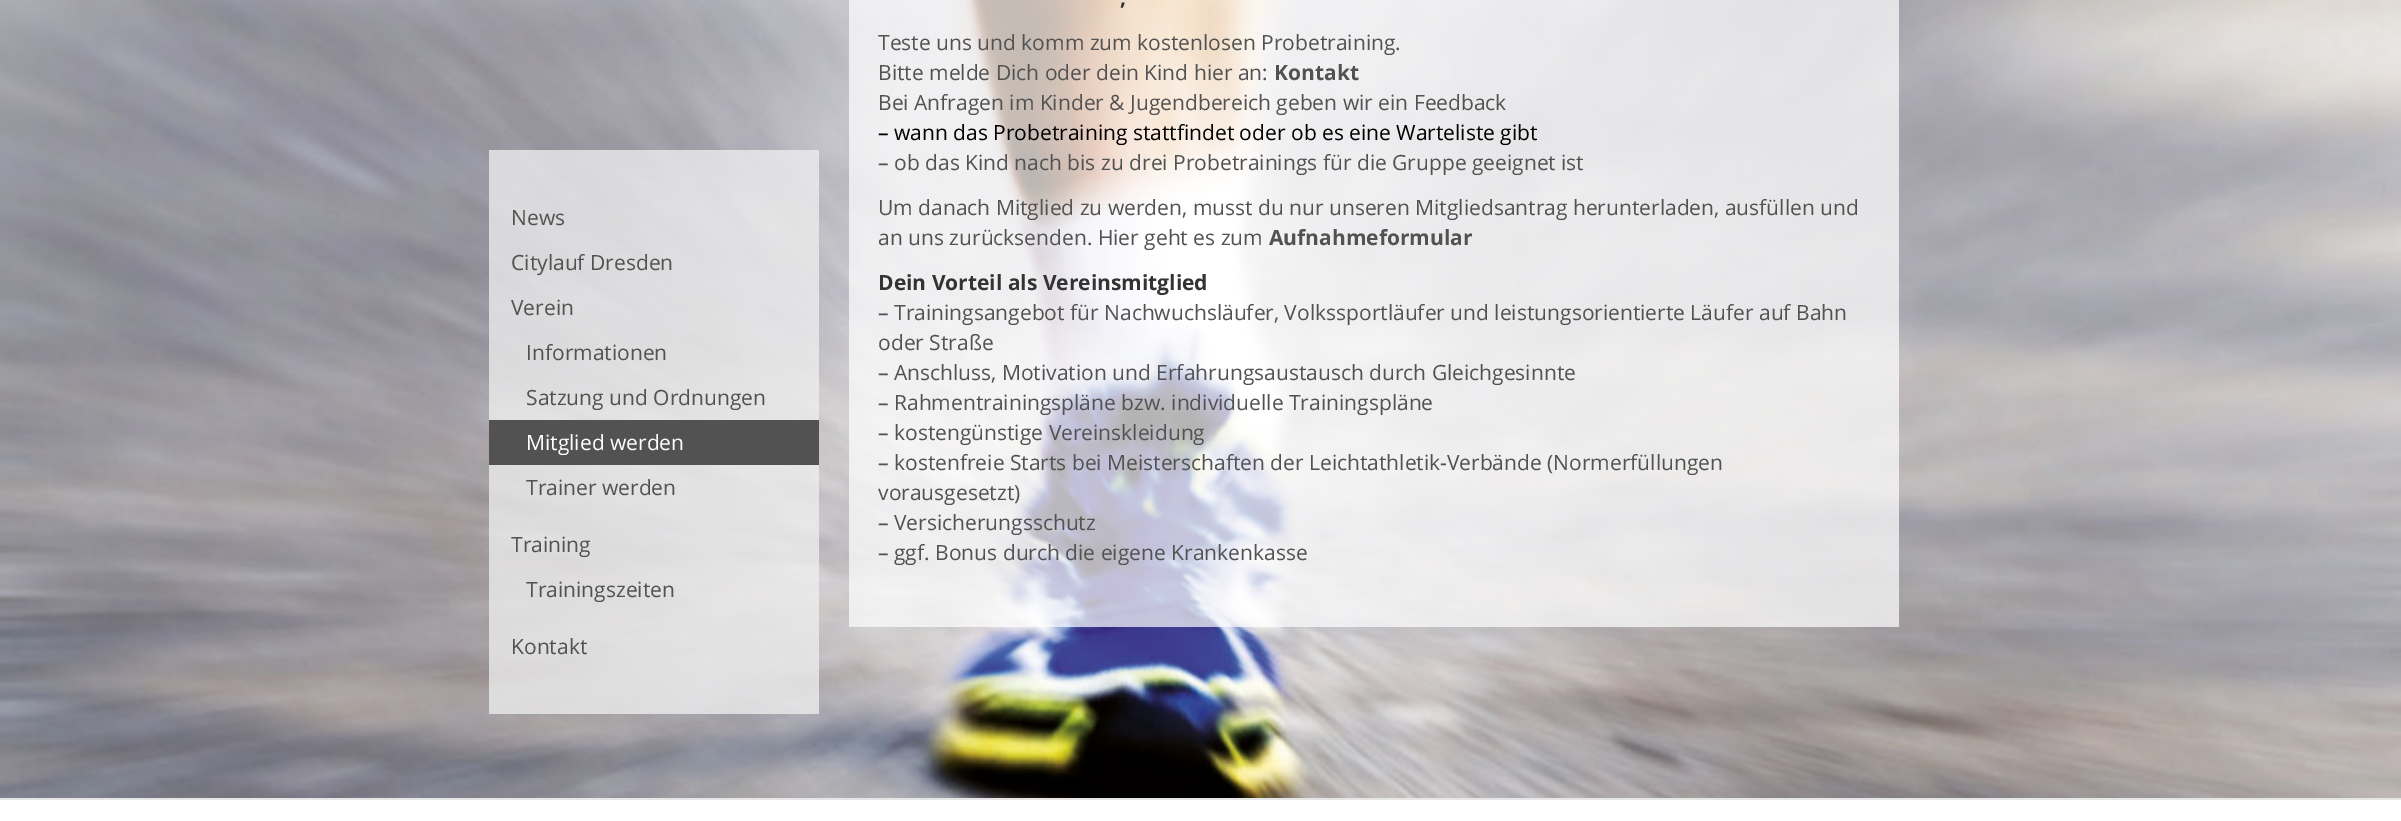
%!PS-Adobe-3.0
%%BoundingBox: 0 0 2401 821
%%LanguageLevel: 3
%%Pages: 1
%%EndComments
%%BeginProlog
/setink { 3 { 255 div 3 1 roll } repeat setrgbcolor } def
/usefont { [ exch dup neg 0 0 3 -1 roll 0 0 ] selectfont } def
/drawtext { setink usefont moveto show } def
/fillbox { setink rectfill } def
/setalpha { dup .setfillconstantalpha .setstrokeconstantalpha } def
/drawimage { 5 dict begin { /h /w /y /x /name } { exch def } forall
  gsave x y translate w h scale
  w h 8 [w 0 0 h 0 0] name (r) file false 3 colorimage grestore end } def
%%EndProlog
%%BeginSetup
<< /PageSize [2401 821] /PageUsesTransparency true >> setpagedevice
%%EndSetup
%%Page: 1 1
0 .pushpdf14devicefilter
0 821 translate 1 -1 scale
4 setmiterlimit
0 0 2401 821 255 255 255 fillbox
(assets/img1.rgb) 0 0 2401 798 drawimage
0.75 setalpha
489 150 330 564 240 240 240 fillbox
1 setalpha
(News) 511 225 /OpenSans-Regular 21 82 82 82 drawtext
(Citylauf Dresden) 511 270 /OpenSans-Regular 21 82 82 82 drawtext
(Verein) 511 315 /OpenSans-Regular 21 82 82 82 drawtext
(Informationen) 526 360 /OpenSans-Regular 21 82 82 82 drawtext
(Satzung und Ordnungen) 526 405 /OpenSans-Regular 21 82 82 82 drawtext
489 420 330 45 82 82 82 fillbox
(Mitglied werden) 526 450 /OpenSans-Regular 21 255 255 255 drawtext
(Trainer werden) 526 495 /OpenSans-Regular 21 82 82 82 drawtext
(Training) 511 552 /OpenSans-Regular 21 82 82 82 drawtext
(Trainingszeiten) 526 597 /OpenSans-Regular 21 82 82 82 drawtext
(Kontakt) 511 654 /OpenSans-Regular 21 82 82 82 drawtext
0.7 setalpha
849 0 1050 627 255 255 255 fillbox
1 setalpha
(,) 1120 5 /OpenSans-Bold 21 51 51 51 drawtext
(Teste uns und komm zum kostenlosen Probetraining.) 878 50 /OpenSans-Regular 21 82 82 82 drawtext
(Bitte melde Dich oder dein Kind hier an:) 878 80 /OpenSans-Regular 21 82 82 82 drawtext
(Kontakt) 1274 80 /OpenSans-Bold 21 82 82 82 drawtext
(Bei Anfragen im Kinder & Jugendbereich geben wir ein Feedback) 878 110 /OpenSans-Regular 21 82 82 82 drawtext
(– wann das Probetraining stattfindet oder ob es eine Warteliste gibt) 878 140 /OpenSans-Regular 21 0 0 0 drawtext
(– ob das Kind nach bis zu drei Probetrainings für die Gruppe geeignet ist) 878 170 /OpenSans-Regular 21 82 82 82 drawtext
(Um danach Mitglied zu werden, musst du nur unseren Mitgliedsantrag herunterladen, ausfüllen und) 878 215 /OpenSans-Regular 21 82 82 82 drawtext
(an uns zurücksenden. Hier geht es zum) 878 245 /OpenSans-Regular 21 82 82 82 drawtext
(Aufnahmeformular) 1269 245 /OpenSans-Bold 21 82 82 82 drawtext
(Dein Vorteil als Vereinsmitglied) 878 290 /OpenSans-Bold 21 51 51 51 drawtext
(– Trainingsangebot für Nachwuchsläufer, Volkssportläufer und leistungsorientierte Läufer auf Bahn) 878 320 /OpenSans-Regular 21 82 82 82 drawtext
(oder Straße) 878 350 /OpenSans-Regular 21 82 82 82 drawtext
(– Anschluss, Motivation und Erfahrungsaustausch durch Gleichgesinnte) 878 380 /OpenSans-Regular 21 82 82 82 drawtext
(– Rahmentrainingspläne bzw. individuelle Trainingspläne) 878 410 /OpenSans-Regular 21 82 82 82 drawtext
(– kostengünstige Vereinskleidung) 878 440 /OpenSans-Regular 21 82 82 82 drawtext
(– kostenfreie Starts bei Meisterschaften der Leichtathletik-Verbände \(Normerfüllungen) 878 470 /OpenSans-Regular 21 82 82 82 drawtext
(vorausgesetzt\)) 878 500 /OpenSans-Regular 21 82 82 82 drawtext
(– Versicherungsschutz) 878 530 /OpenSans-Regular 21 82 82 82 drawtext
(– ggf. Bonus durch die eigene Krankenkasse) 878 560 /OpenSans-Regular 21 82 82 82 drawtext
0 798 2401 2 230 230 230 fillbox
.poppdf14devicefilter showpage
%%EOF
